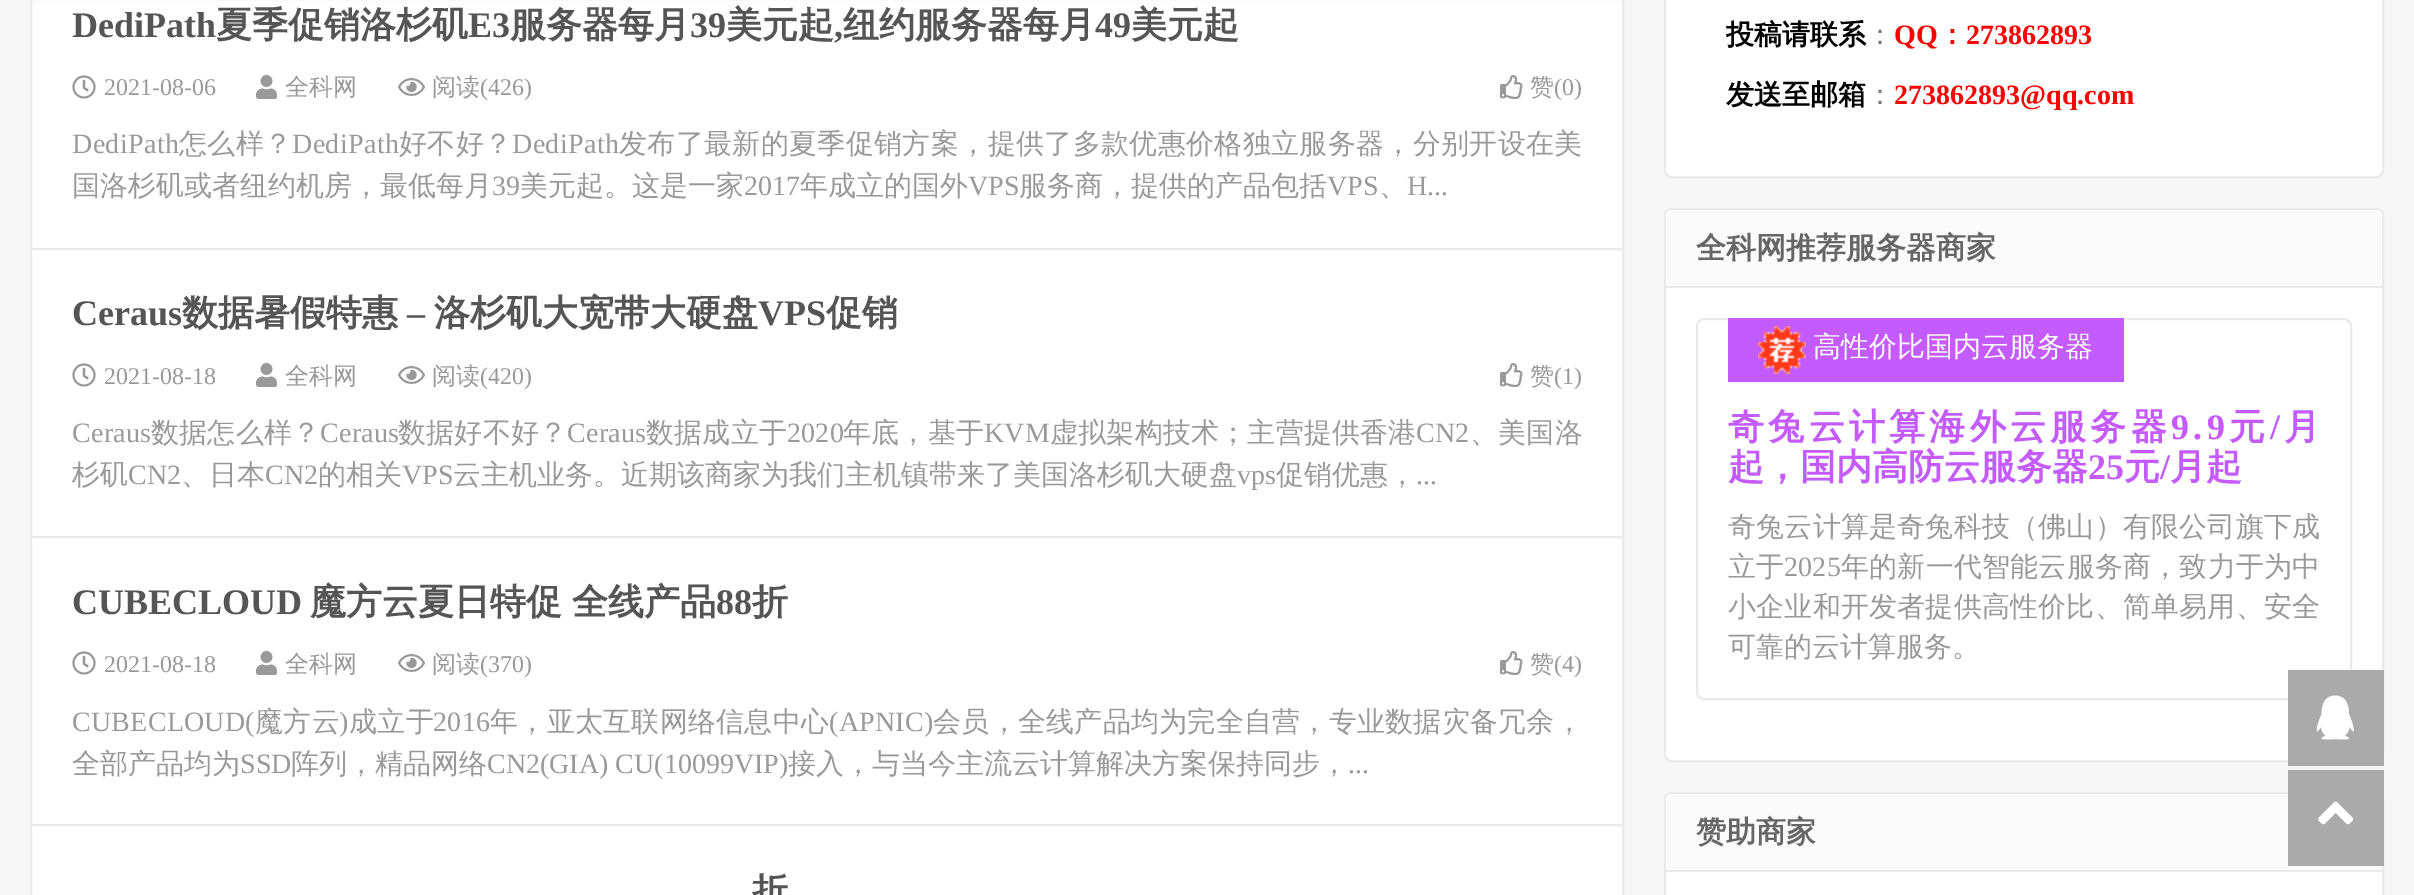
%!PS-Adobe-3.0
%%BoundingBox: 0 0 2414 895
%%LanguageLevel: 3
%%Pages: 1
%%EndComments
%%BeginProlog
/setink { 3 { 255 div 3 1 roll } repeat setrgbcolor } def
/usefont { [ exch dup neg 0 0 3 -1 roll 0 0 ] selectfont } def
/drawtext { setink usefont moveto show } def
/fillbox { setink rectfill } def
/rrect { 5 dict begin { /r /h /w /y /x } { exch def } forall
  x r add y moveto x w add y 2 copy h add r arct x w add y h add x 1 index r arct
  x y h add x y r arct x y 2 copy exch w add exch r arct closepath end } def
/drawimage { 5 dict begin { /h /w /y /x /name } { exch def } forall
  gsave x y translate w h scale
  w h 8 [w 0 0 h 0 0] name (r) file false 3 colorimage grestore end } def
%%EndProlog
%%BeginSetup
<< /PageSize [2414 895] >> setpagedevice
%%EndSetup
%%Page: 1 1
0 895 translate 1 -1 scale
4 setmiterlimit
0 0 2414 895 246 246 246 fillbox
255 255 255 setink
31 -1 moveto 1623 -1 lineto 1623 249 lineto 31 249 lineto closepath gsave fill grestore
234 234 234 setink
2 setlinewidth
stroke
(DediPath) 72 37 /LiberationSerif-Bold 36 85 85 85 drawtext
(夏季促销洛杉矶) 216 37 /WenQuanYiZenHei-Bold 36 85 85 85 drawtext
(E3) 468 37 /LiberationSerif-Bold 36 85 85 85 drawtext
(服务器每月) 510 37 /WenQuanYiZenHei-Bold 36 85 85 85 drawtext
(39) 690 37 /LiberationSerif-Bold 36 85 85 85 drawtext
(美元起) 726 37 /WenQuanYiZenHei-Bold 36 85 85 85 drawtext
(,) 834 37 /LiberationSerif-Bold 36 85 85 85 drawtext
(纽约服务器每月) 843 37 /WenQuanYiZenHei-Bold 36 85 85 85 drawtext
(49) 1095 37 /LiberationSerif-Bold 36 85 85 85 drawtext
(美元起) 1131 37 /WenQuanYiZenHei-Bold 36 85 85 85 drawtext
(assets/img1.rgb) 72 75 24 24 drawimage
(2021-08-06) 104 95 /LiberationSerif-Regular 24 153 153 153 drawtext
(assets/img2.rgb) 256 75 21 24 drawimage
(全科网) 285 95 /WenQuanYiZenHei-Medium 24 153 153 153 drawtext
(assets/img3.rgb) 398 78 27 18 drawimage
(阅读) 432 95 /WenQuanYiZenHei-Medium 24 153 153 153 drawtext
(\(426\)) 480 95 /LiberationSerif-Regular 24 153 153 153 drawtext
(assets/img4.rgb) 1500 75 23 24 drawimage
(赞) 1530 95 /WenQuanYiZenHei-Medium 24 153 153 153 drawtext
(\(0\)) 1554 95 /LiberationSerif-Regular 24 153 153 153 drawtext
/LiberationSerif-Regular 28 usefont
72 153 moveto 0.35 0 (DediPath) ashow
/WenQuanYiZenHei-Medium 28 usefont
179 153 moveto 0.35 0 (怎么样？) ashow
/LiberationSerif-Regular 28 usefont
292 153 moveto 0.35 0 (DediPath) ashow
/WenQuanYiZenHei-Medium 28 usefont
399 153 moveto 0.35 0 (好不好？) ashow
/LiberationSerif-Regular 28 usefont
512 153 moveto 0.35 0 (DediPath) ashow
/WenQuanYiZenHei-Medium 28 usefont
619 153 moveto 0.35 0 (发布了最新的夏季促销方案，提供了多款优惠价格独立服务器，分别开设在美) ashow
(国洛杉矶或者纽约机房，最低每月) 72 195 /WenQuanYiZenHei-Medium 28 153 153 153 drawtext
(39) 492 195 /LiberationSerif-Regular 28 153 153 153 drawtext
(美元起。这是一家) 520 195 /WenQuanYiZenHei-Medium 28 153 153 153 drawtext
(2017) 744 195 /LiberationSerif-Regular 28 153 153 153 drawtext
(年成立的国外) 800 195 /WenQuanYiZenHei-Medium 28 153 153 153 drawtext
(VPS) 968 195 /LiberationSerif-Regular 28 153 153 153 drawtext
(服务商，提供的产品包括) 1019 195 /WenQuanYiZenHei-Medium 28 153 153 153 drawtext
(VPS) 1327 195 /LiberationSerif-Regular 28 153 153 153 drawtext
(、) 1379 195 /WenQuanYiZenHei-Medium 28 153 153 153 drawtext
(H...) 1407 195 /LiberationSerif-Regular 28 153 153 153 drawtext
255 255 255 setink
31 249 moveto 1623 249 lineto 1623 537 lineto 31 537 lineto closepath gsave fill grestore
234 234 234 setink
stroke
(Ceraus) 72 325 /LiberationSerif-Bold 36 85 85 85 drawtext
(数据暑假特惠) 182 325 /WenQuanYiZenHei-Bold 36 85 85 85 drawtext
(–) 407 325 /LiberationSerif-Bold 36 85 85 85 drawtext
(洛杉矶大宽带大硬盘) 434 325 /WenQuanYiZenHei-Bold 36 85 85 85 drawtext
(VPS) 758 325 /LiberationSerif-Bold 36 85 85 85 drawtext
(促销) 826 325 /WenQuanYiZenHei-Bold 36 85 85 85 drawtext
(assets/img1.rgb) 72 363 24 24 drawimage
(2021-08-18) 104 384 /LiberationSerif-Regular 24 153 153 153 drawtext
(assets/img2.rgb) 256 363 21 24 drawimage
(全科网) 285 384 /WenQuanYiZenHei-Medium 24 153 153 153 drawtext
(assets/img3.rgb) 398 366 27 18 drawimage
(阅读) 432 384 /WenQuanYiZenHei-Medium 24 153 153 153 drawtext
(\(420\)) 480 384 /LiberationSerif-Regular 24 153 153 153 drawtext
(assets/img4.rgb) 1500 363 23 24 drawimage
(赞) 1530 384 /WenQuanYiZenHei-Medium 24 153 153 153 drawtext
(\(1\)) 1554 384 /LiberationSerif-Regular 24 153 153 153 drawtext
/LiberationSerif-Regular 28 usefont
72 442 moveto 0.2 0 (Ceraus) ashow
/WenQuanYiZenHei-Medium 28 usefont
151 442 moveto 0.2 0 (数据怎么样？) ashow
/LiberationSerif-Regular 28 usefont
320 442 moveto 0.2 0 (Ceraus) ashow
/WenQuanYiZenHei-Medium 28 usefont
398 442 moveto 0.2 0 (数据好不好？) ashow
/LiberationSerif-Regular 28 usefont
567 442 moveto 0.2 0 (Ceraus) ashow
/WenQuanYiZenHei-Medium 28 usefont
646 442 moveto 0.2 0 (数据成立于) ashow
/LiberationSerif-Regular 28 usefont
787 442 moveto 0.2 0 (2020) ashow
/WenQuanYiZenHei-Medium 28 usefont
843 442 moveto 0.2 0 (年底，基于) ashow
/LiberationSerif-Regular 28 usefont
984 442 moveto 0.2 0 (KVM) ashow
/WenQuanYiZenHei-Medium 28 usefont
1050 442 moveto 0.2 0 (虚拟架构技术；主营提供香港) ashow
/LiberationSerif-Regular 28 usefont
1416 442 moveto 0.2 0 (CN2) ashow
/WenQuanYiZenHei-Medium 28 usefont
1470 442 moveto 0.2 0 (、美国洛) ashow
(杉矶) 72 484 /WenQuanYiZenHei-Medium 28 153 153 153 drawtext
(CN2) 128 484 /LiberationSerif-Regular 28 153 153 153 drawtext
(、日本) 181 484 /WenQuanYiZenHei-Medium 28 153 153 153 drawtext
(CN2) 265 484 /LiberationSerif-Regular 28 153 153 153 drawtext
(的相关) 318 484 /WenQuanYiZenHei-Medium 28 153 153 153 drawtext
(VPS) 402 484 /LiberationSerif-Regular 28 153 153 153 drawtext
(云主机业务。近期该商家为我们主机镇带来了美国洛杉矶大硬盘) 453 484 /WenQuanYiZenHei-Medium 28 153 153 153 drawtext
(vps) 1237 484 /LiberationSerif-Regular 28 153 153 153 drawtext
(促销优惠，) 1276 484 /WenQuanYiZenHei-Medium 28 153 153 153 drawtext
(...) 1416 484 /LiberationSerif-Regular 28 153 153 153 drawtext
255 255 255 setink
31 537 moveto 1623 537 lineto 1623 825 lineto 31 825 lineto closepath gsave fill grestore
234 234 234 setink
stroke
(CUBECLOUD) 72 614 /LiberationSerif-Bold 36 85 85 85 drawtext
/WenQuanYiZenHei-Bold 36 usefont
310 614 moveto -1 0 32 (魔方云夏日特促 全线产品) widthshow
(88) 716 614 /LiberationSerif-Bold 36 85 85 85 drawtext
(折) 752 614 /WenQuanYiZenHei-Bold 36 85 85 85 drawtext
(assets/img1.rgb) 72 651 24 24 drawimage
(2021-08-18) 104 672 /LiberationSerif-Regular 24 153 153 153 drawtext
(assets/img2.rgb) 256 651 21 24 drawimage
(全科网) 285 672 /WenQuanYiZenHei-Medium 24 153 153 153 drawtext
(assets/img3.rgb) 398 654 27 18 drawimage
(阅读) 432 672 /WenQuanYiZenHei-Medium 24 153 153 153 drawtext
(\(370\)) 480 672 /LiberationSerif-Regular 24 153 153 153 drawtext
(assets/img4.rgb) 1500 651 23 24 drawimage
(赞) 1530 672 /WenQuanYiZenHei-Medium 24 153 153 153 drawtext
(\(4\)) 1554 672 /LiberationSerif-Regular 24 153 153 153 drawtext
/LiberationSerif-Regular 28 usefont
72 731 moveto 0.25 0 (CUBECLOUD\() ashow
/WenQuanYiZenHei-Medium 28 usefont
255 731 moveto 0.25 0 (魔方云) ashow
/LiberationSerif-Regular 28 usefont
339 731 moveto 0.25 0 (\)) ashow
/WenQuanYiZenHei-Medium 28 usefont
349 731 moveto 0.25 0 (成立于) ashow
/LiberationSerif-Regular 28 usefont
433 731 moveto 0.25 0 (2016) ashow
/WenQuanYiZenHei-Medium 28 usefont
490 731 moveto 0.25 0 (年，亚太互联网络信息中心) ashow
/LiberationSerif-Regular 28 usefont
829 731 moveto 0.25 0 (\(APNIC\)) ashow
/WenQuanYiZenHei-Medium 28 usefont
933 731 moveto 0.25 0 (会员，全线产品均为完全自营，专业数据灾备冗余，) ashow
(全部产品均为) 72 773 /WenQuanYiZenHei-Medium 28 153 153 153 drawtext
(SSD) 240 773 /LiberationSerif-Regular 28 153 153 153 drawtext
(阵列，精品网络) 291 773 /WenQuanYiZenHei-Medium 28 153 153 153 drawtext
(CN2\(GIA\) CU\(10099VIP\)) 487 773 /LiberationSerif-Regular 28 153 153 153 drawtext
(接入，与当今主流云计算解决方案保持同步，) 788 773 /WenQuanYiZenHei-Medium 28 153 153 153 drawtext
(...) 1348 773 /LiberationSerif-Regular 28 153 153 153 drawtext
255 255 255 setink
31 825 moveto 1623 825 lineto 1623 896 lineto 31 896 lineto closepath gsave fill grestore
234 234 234 setink
stroke
(折) 752 903 /WenQuanYiZenHei-Bold 36 85 85 85 drawtext
255 255 255 setink
1665 -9 718 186 7 rrect gsave fill grestore
234 234 234 setink
stroke
(投稿请联系) 1726 44 /WenQuanYiZenHei-Bold 28 0 0 0 drawtext
(：) 1866 44 /WenQuanYiZenHei-Medium 28 119 119 119 drawtext
(QQ) 1894 44 /LiberationSerif-Bold 28 255 0 0 drawtext
(：) 1938 44 /WenQuanYiZenHei-Bold 28 255 0 0 drawtext
(273862893) 1966 44 /LiberationSerif-Bold 28 255 0 0 drawtext
(发送至邮箱) 1726 104 /WenQuanYiZenHei-Bold 28 0 0 0 drawtext
(：) 1866 104 /WenQuanYiZenHei-Medium 28 119 119 119 drawtext
(273862893@qq.com) 1894 104 /LiberationSerif-Bold 28 255 0 0 drawtext
255 255 255 setink
1665 209 718 552 7 rrect gsave fill grestore
234 234 234 setink
stroke
251 251 251 setink
1672 210 moveto 2376 210 lineto 2379.5 210 2382 212.5 2382 216 curveto 2382 288 lineto 1666 288 lineto 1666 216 lineto 1666 212.5 1668.5 210 1672 210 curveto closepath fill
1666 286 716 2 234 234 234 fillbox
(全科网推荐服务器商家) 1696 258 /WenQuanYiZenHei-Bold 30 102 102 102 drawtext
234 234 234 setink
1697 319 654 380 7 rrect stroke
1728 318 396 64 195 91 255 fillbox
(assets/img5.rgb) 1758 326 48 48 drawimage
(高性价比国内云服务器) 1813 356 /WenQuanYiZenHei-Medium 28 255 255 255 drawtext
/WenQuanYiZenHei-Bold 36 usefont
195 91 255 setink
1728 439 moveto 4.25 0 (奇兔云计算海外云服务器) ashow
/LiberationSerif-Bold 36 usefont
2171 439 moveto 4.25 0 (9.9) ashow
/WenQuanYiZenHei-Bold 36 usefont
2229 439 moveto 4.25 0 (元) ashow
/LiberationSerif-Bold 36 usefont
2270 439 moveto 4.25 0 (/) ashow
/WenQuanYiZenHei-Bold 36 usefont
2284 439 moveto 4.25 0 (月) ashow
(起，国内高防云服务器) 1728 479 /WenQuanYiZenHei-Bold 36 195 91 255 drawtext
(25) 2088 479 /LiberationSerif-Bold 36 195 91 255 drawtext
(元) 2124 479 /WenQuanYiZenHei-Bold 36 195 91 255 drawtext
(/) 2160 479 /LiberationSerif-Bold 36 195 91 255 drawtext
(月起) 2170 479 /WenQuanYiZenHei-Bold 36 195 91 255 drawtext
/WenQuanYiZenHei-Medium 28 usefont
153 153 153 setink
1728 536 moveto 0.2 0 (奇兔云计算是奇兔科技（佛山）有限公司旗下成) ashow
1728 576 moveto 0.2 0 (立于) ashow
/LiberationSerif-Regular 28 usefont
1784 576 moveto 0.2 0 (2025) ashow
/WenQuanYiZenHei-Medium 28 usefont
1841 576 moveto 0.2 0 (年的新一代智能云服务商，致力于为中) ashow
1728 616 moveto 0.2 0 (小企业和开发者提供高性价比、简单易用、安全) ashow
(可靠的云计算服务。) 1728 656 /WenQuanYiZenHei-Medium 28 153 153 153 drawtext
255 255 255 setink
1665 793 718 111 7 rrect gsave fill grestore
234 234 234 setink
stroke
251 251 251 setink
1672 794 moveto 2376 794 lineto 2379.5 794 2382 796.5 2382 800 curveto 2382 872 lineto 1666 872 lineto 1666 800 lineto 1666 796.5 1668.5 794 1672 794 curveto closepath fill
1666 870 716 2 234 234 234 fillbox
(赞助商家) 1696 842 /WenQuanYiZenHei-Bold 30 102 102 102 drawtext
2288 670 96 96 170 170 170 fillbox
(assets/img6.rgb) 2316 695 38 45 drawimage
2288 770 96 96 170 170 170 fillbox
(assets/img7.rgb) 2318 801 36 24 drawimage
showpage
%%EOF
